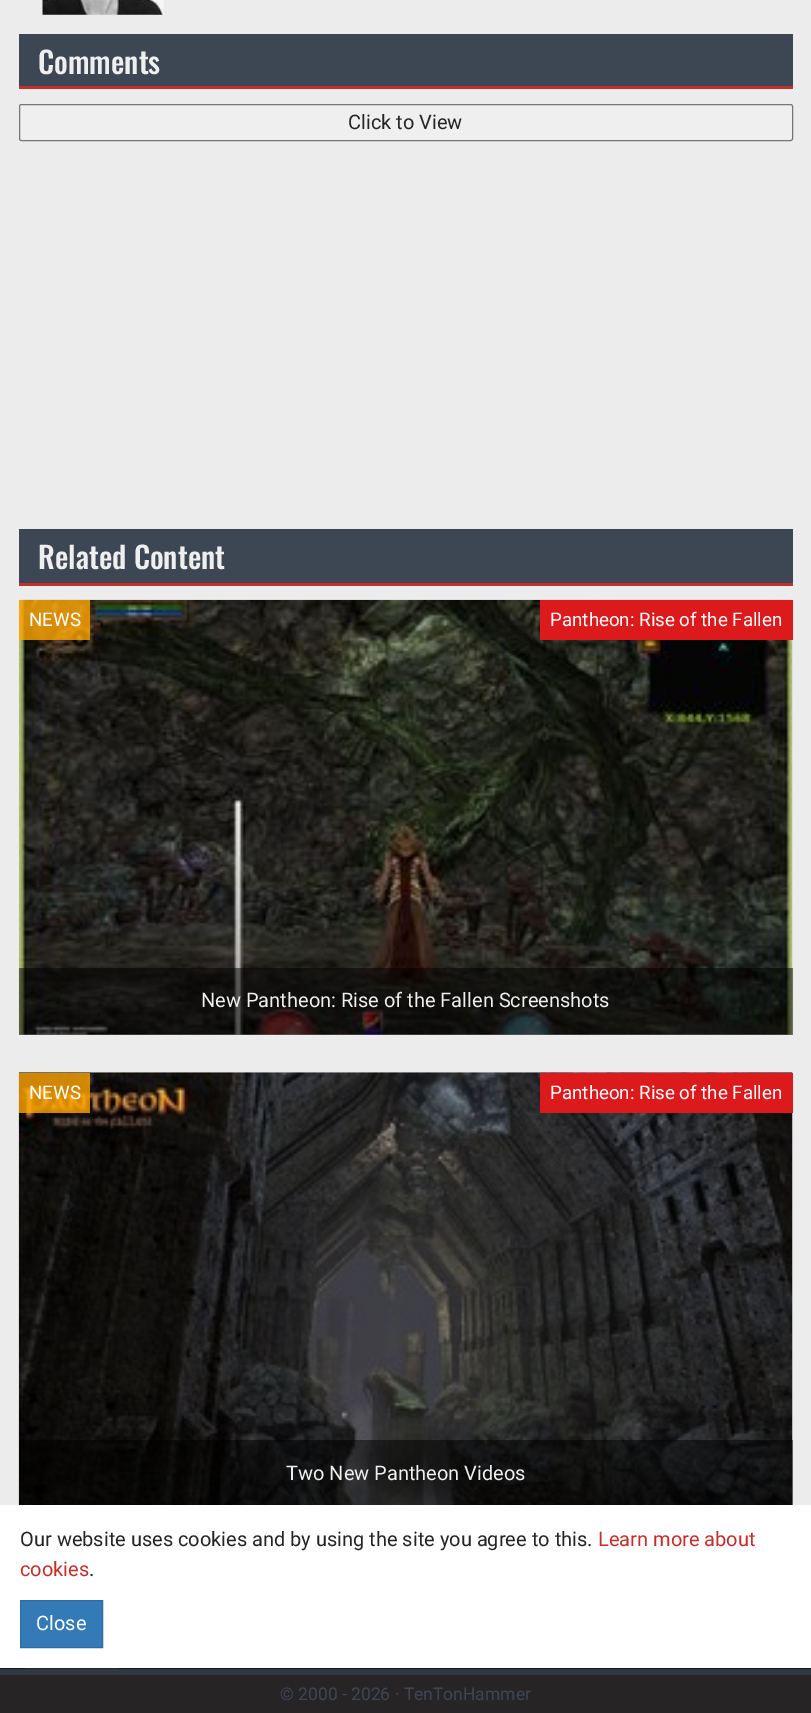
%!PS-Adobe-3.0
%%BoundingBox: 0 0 811 1713
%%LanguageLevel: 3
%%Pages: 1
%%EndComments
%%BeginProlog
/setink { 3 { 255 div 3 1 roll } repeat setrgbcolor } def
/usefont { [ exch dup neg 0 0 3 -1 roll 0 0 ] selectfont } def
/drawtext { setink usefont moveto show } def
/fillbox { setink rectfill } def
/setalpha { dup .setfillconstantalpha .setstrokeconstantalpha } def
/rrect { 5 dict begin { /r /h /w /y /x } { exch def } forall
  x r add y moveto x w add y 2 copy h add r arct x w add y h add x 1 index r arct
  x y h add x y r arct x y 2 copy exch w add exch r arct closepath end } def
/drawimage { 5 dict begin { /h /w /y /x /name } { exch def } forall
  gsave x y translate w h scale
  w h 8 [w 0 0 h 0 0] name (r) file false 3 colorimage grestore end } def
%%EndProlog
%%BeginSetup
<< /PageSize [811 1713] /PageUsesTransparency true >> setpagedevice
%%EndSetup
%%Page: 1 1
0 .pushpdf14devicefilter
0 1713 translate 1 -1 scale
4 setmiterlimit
0 0 811 1713 26 18 38 fillbox
0 0 811 1505 236 236 236 fillbox
(assets/img1.rgb) 42 0 122 15 drawimage
19 34 774 52 61 71 84 fillbox
19 86 774 3 195 47 43 fillbox
(Comments) 38 74 /Oswald-Medium 30 239 239 239 drawtext
19.5 104.5 773 36 2 rrect gsave fill grestore
118 118 118 setink
stroke
(Click to View) 348 129 /Roboto-Regular 20 38 36 37 drawtext
19 529 774 54 61 71 84 fillbox
19 583 774 3 195 47 43 fillbox
(Related Content) 38 569 /Oswald-Medium 30 239 239 239 drawtext
(assets/img2.rgb) 18 599 775 436 drawimage
0.8 setalpha
19 600 71 40 255 165 0 fillbox
1 setalpha
(NEWS) 29 626 /Roboto-Regular 18.75 255 255 255 drawtext
540 600 253 40 220 25 27 fillbox
(Pantheon: Rise of the Fallen) 550 626 /Roboto-Regular 18.75 255 255 255 drawtext
0.5 setalpha
19 968 774 67 0 0 0 fillbox
1 setalpha
(New Pantheon: Rise of the Fallen Screenshots) 201 1007 /Roboto-Regular 20 239 239 239 drawtext
(assets/img3.rgb) 18 1072 775 433 drawimage
0.8 setalpha
19 1073 71 40 255 165 0 fillbox
1 setalpha
(NEWS) 29 1099 /Roboto-Regular 18.75 255 255 255 drawtext
540 1073 253 40 220 25 27 fillbox
(Pantheon: Rise of the Fallen) 550 1099 /Roboto-Regular 18.75 255 255 255 drawtext
0.5 setalpha
19 1440 774 65 0 0 0 fillbox
1 setalpha
(Two New Pantheon Videos) 286 1480 /Roboto-Regular 20 239 239 239 drawtext
0 1669 811 6 48 56 66 fillbox
0 1505 811 163 255 255 255 fillbox
(Our website uses cookies and by using the site you agree to this.) 20 1546 /Roboto-Regular 20 38 36 37 drawtext
(Learn more about) 598 1546 /Roboto-Regular 20 195 47 43 drawtext
(cookies) 20 1576 /Roboto-Regular 20 195 47 43 drawtext
(.) 89 1576 /Roboto-Regular 20 38 36 37 drawtext
51 122 183 setink
20.5 1600.5 moveto 102.5 1600.5 lineto 102.5 1647.5 lineto 20.5 1647.5 lineto closepath gsave fill grestore
46 109 164 setink
stroke
(Close) 36 1630 /Roboto-Regular 20 255 255 255 drawtext
25 1668 94 1 38 36 37 fillbox
0 1675 811 38 38 36 37 fillbox
(© 2000 - 2026 · TenTonHammer) 280 1700 /Roboto-Regular 17.5 61 71 84 drawtext
.poppdf14devicefilter showpage
%%EOF
